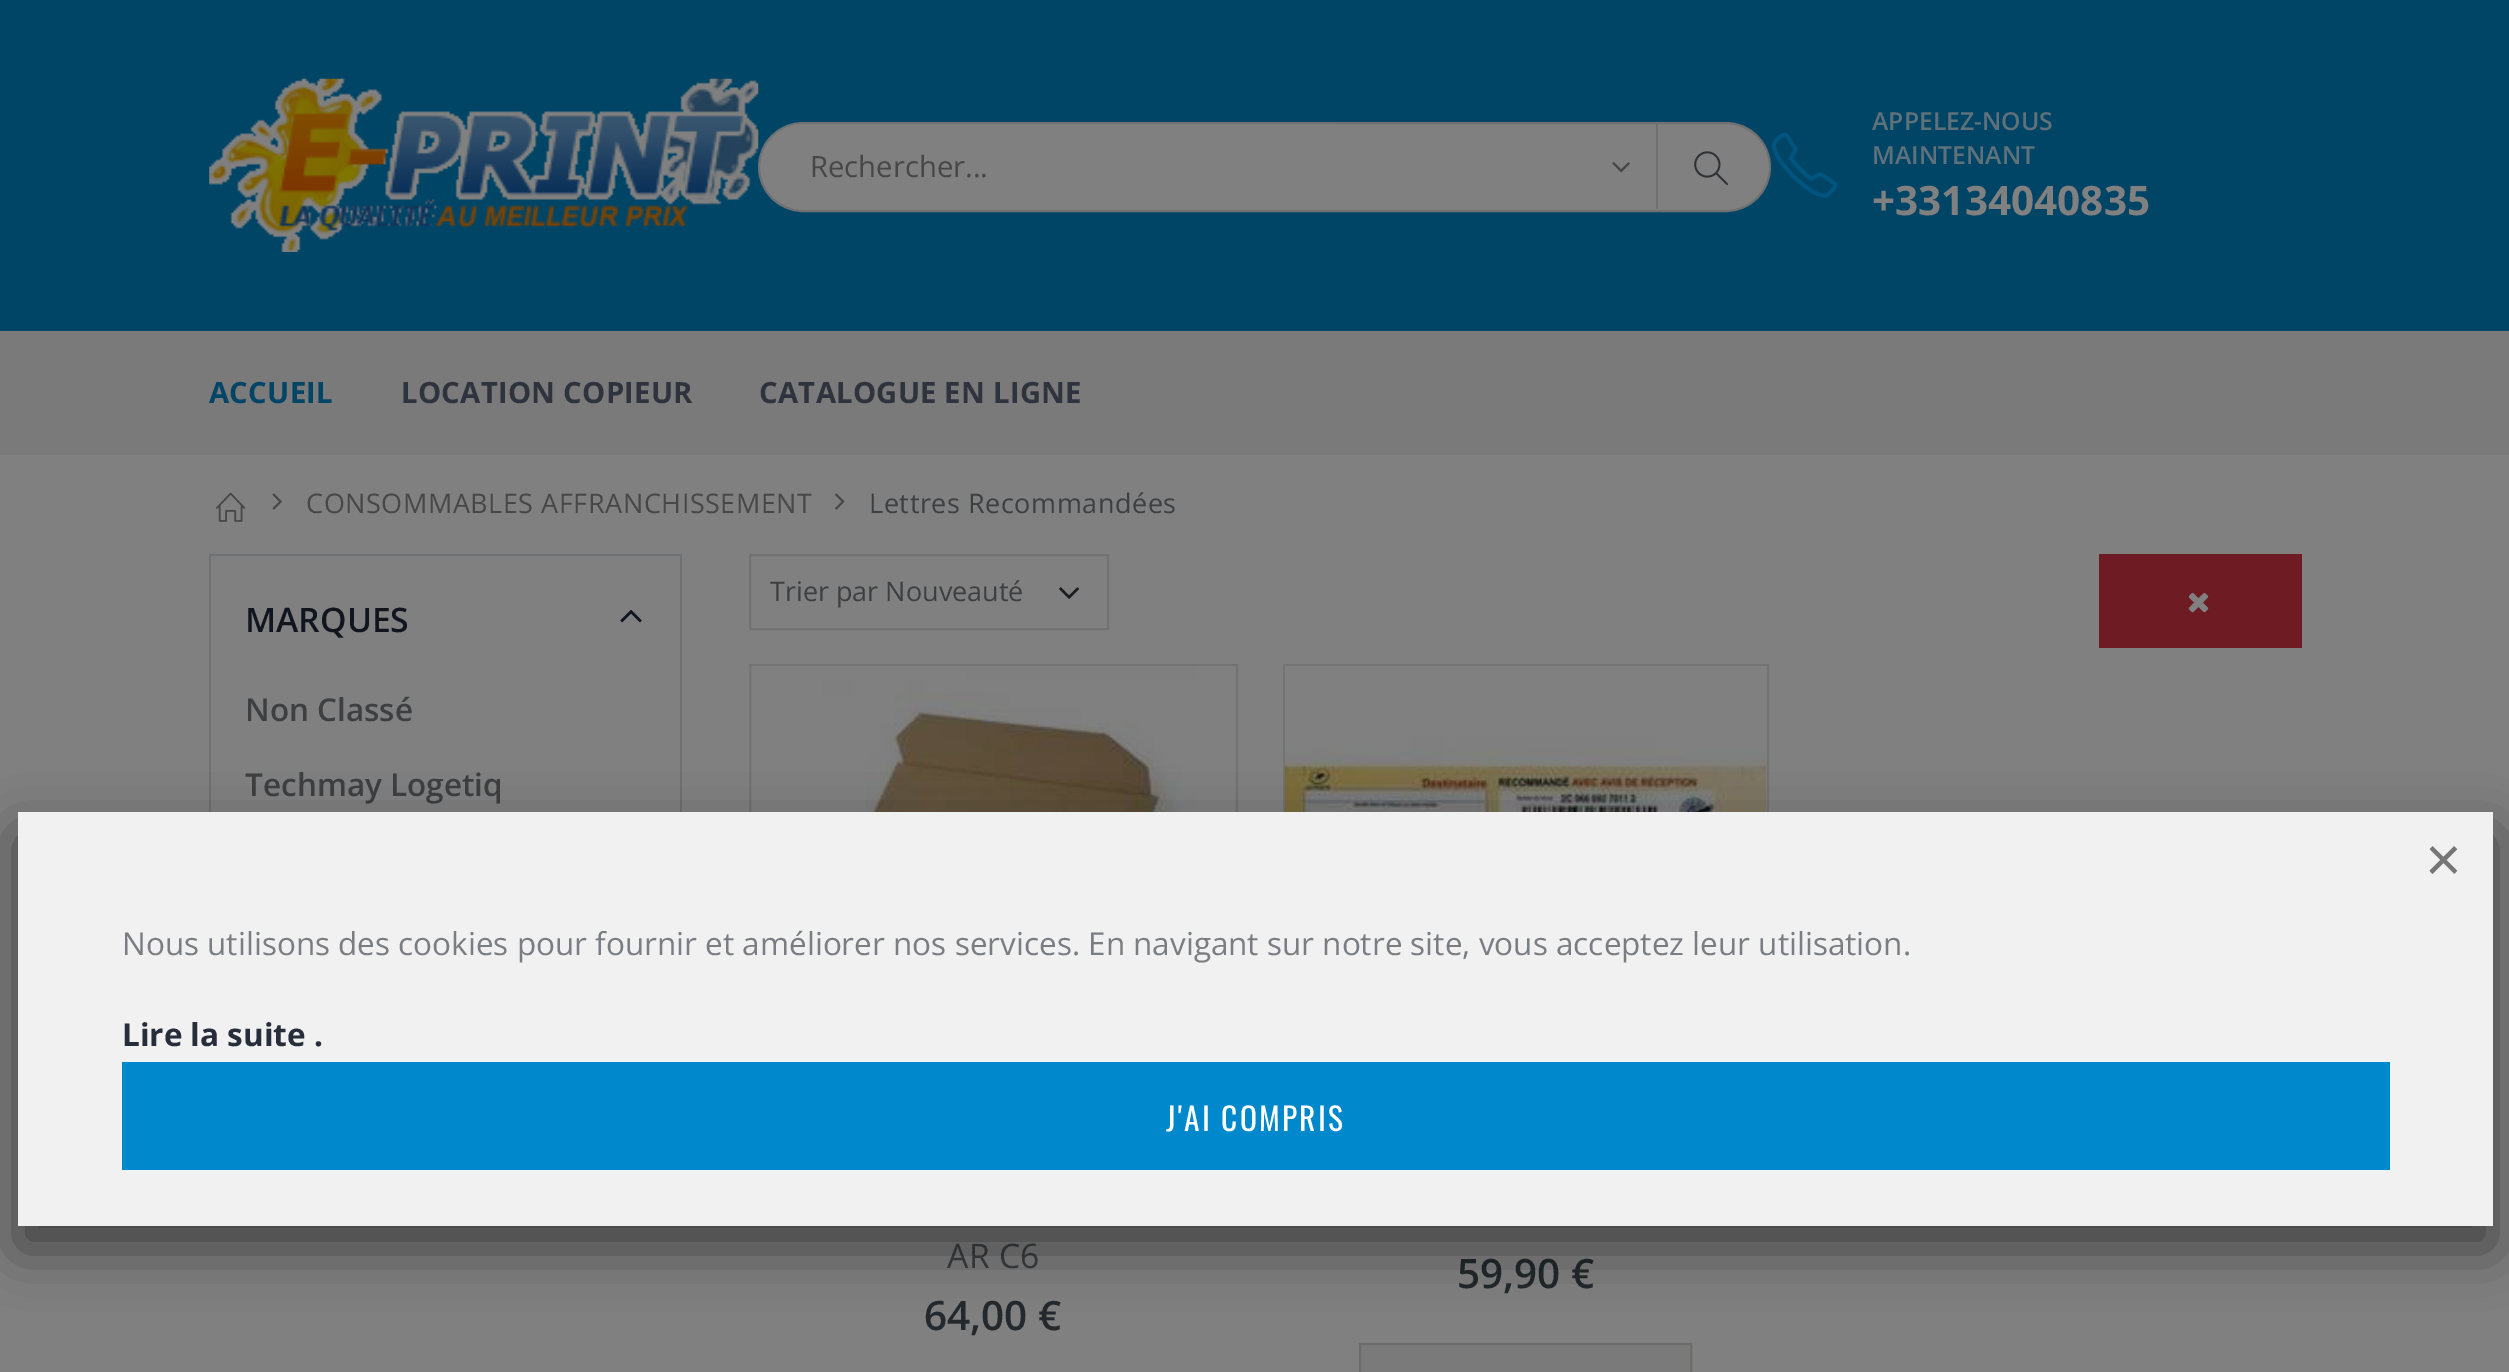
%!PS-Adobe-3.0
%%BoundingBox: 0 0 2509 1372
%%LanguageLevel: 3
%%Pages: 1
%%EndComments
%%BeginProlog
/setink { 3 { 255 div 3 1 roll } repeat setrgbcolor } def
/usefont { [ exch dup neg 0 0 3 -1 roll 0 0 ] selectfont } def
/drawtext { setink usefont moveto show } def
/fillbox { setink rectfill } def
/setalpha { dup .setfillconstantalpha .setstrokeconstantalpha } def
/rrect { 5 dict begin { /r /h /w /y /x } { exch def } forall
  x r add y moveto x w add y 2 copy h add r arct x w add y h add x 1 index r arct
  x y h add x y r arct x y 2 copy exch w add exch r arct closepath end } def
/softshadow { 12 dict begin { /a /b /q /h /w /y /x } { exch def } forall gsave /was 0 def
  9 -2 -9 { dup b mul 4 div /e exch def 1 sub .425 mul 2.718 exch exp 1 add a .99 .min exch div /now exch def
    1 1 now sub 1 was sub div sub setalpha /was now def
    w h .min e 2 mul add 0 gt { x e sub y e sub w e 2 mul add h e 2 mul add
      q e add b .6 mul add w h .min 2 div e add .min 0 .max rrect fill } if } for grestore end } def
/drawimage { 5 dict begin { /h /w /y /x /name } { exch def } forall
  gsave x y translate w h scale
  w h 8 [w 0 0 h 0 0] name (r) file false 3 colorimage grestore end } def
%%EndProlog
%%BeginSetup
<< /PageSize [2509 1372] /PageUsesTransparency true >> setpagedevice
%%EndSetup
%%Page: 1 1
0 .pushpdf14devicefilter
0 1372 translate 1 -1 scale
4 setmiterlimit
0 0 2509 1372 128 128 128 fillbox
0 0 2509 331 0 68 102 fillbox
(assets/img1.rgb) 209 78 550 174 drawimage
128 128 128 setink
759 123 1011 88 44 rrect gsave fill grestore
110 112 113 setink
2 setlinewidth
stroke
128 128 128 setink
803.5 124 moveto 1337 124 lineto 1337 209 lineto 803.5 209 lineto 780 209 761 190 761 166.5 curveto 761 143 780 124 803.5 124 curveto closepath fill
(Rechercher...) 810 177 /OpenSans-Regular 29.25 71 71 71 drawtext
(assets/img2.rgb) 1612 162 18 11 drawimage
1656 124 2 85 110 112 113 fillbox
(assets/img3.rgb) 1694 151 34 34 drawimage
(assets/img4.rgb) 1771 132 67 66 drawimage
(APPELEZ-NOUS) 1872 130 /OpenSans-SemiBold 24.75 95 113 123 drawtext
(MAINTENANT) 1872 164 /OpenSans-SemiBold 24.75 95 113 123 drawtext
(+33134040835) 1872 215 /OpenSans-Bold 40.5 128 128 128 drawtext
0 331 2509 124 122 122 122 fillbox
/OpenSans-Bold 29.25 usefont
0 68 102 setink
209 403 moveto 0.25 0 (ACCUEIL) ashow
47 51 61 setink
401 403 moveto 0.25 0 (LOCATION COPIEUR) ashow
759 403 moveto 0.25 0 (CATALOGUE EN LIGNE) ashow
(assets/img5.rgb) 216 492 30 30 drawimage
(assets/img6.rgb) 272 493 10 17 drawimage
/OpenSans-Regular 27 usefont
71 71 71 setink
306 513 moveto 0.55 0 (CONSOMMABLES AFFRANCHISSEMENT) ashow
(assets/img7.rgb) 835 493 10 17 drawimage
61 63 65 setink
869 513 moveto 0.55 0 (Lettres Recommandées) ashow
209 554 473 2 109 113 115 fillbox
680 554 2 258 109 113 115 fillbox
209 554 2 258 109 113 115 fillbox
(MARQUES) 245 632 /OpenSans-SemiBold 33.75 17 21 30 drawtext
(assets/img8.rgb) 620 609 22 14 drawimage
(Non Classé) 245 721 /OpenSans-SemiBold 31.5 61 63 65 drawtext
(Techmay Logetiq) 245 796 /OpenSans-SemiBold 31.5 61 63 65 drawtext
114 114 114 setink
750 555 358 74 rectstroke
gsave
770 572 281 40 rectclip
(Trier par Nouveauté) 770 601 /OpenSans-Regular 27 61 63 65 drawtext
grestore
(assets/img9.rgb) 1059 587 20 12 drawimage
2099 554 203 94 110 27 35 fillbox
(assets/img10.rgb) 2188 592 21 21 drawimage
751 666 485 146 125 125 125 fillbox
115 115 115 setink
750 665 487 439 rectstroke
(assets/img11.rgb) 752 666 483 146 drawimage
/OpenSans-Regular 33.75 usefont
61 63 65 setink
947 1268 moveto 0.25 0 (AR C6) ashow
(64,00 €) 924 1330 /OpenSans-SemiBold 40.5 35 41 44 drawtext
1766 666 1 146 125 125 125 fillbox
115 115 115 setink
1284 665 484 439 rectstroke
(assets/img12.rgb) 1284 666 483 146 drawimage
(59,90 €) 1457 1288 /OpenSans-SemiBold 40.5 35 41 44 drawtext
122 122 122 setink
1360 1344 moveto 1691 1344 lineto 1691 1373 lineto 1360 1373 lineto closepath gsave fill grestore
108 108 107 setink
stroke
0 0 0 setink
18 835 2475 414 0 28 0.5 softshadow
18 812 2475 414 241 241 241 fillbox
(×) 2425 881 /LiberationSans-Regular 63 118 118 118 drawtext
(Nous utilisons des cookies pour fournir et améliorer nos services. En navigant sur notre site, vous acceptez leur utilisation.) 122 955 /OpenSans-Regular 31.5 122 125 130 drawtext
(Lire la suite .) 122 1046 /OpenSans-Bold 31.5 40 45 59 drawtext
122 1062 2268 108 0 136 204 fillbox
/Oswald-Regular 31.5 usefont
255 255 255 setink
1166 1131 moveto 2.25 0 (J'AI COMPRIS) ashow
.poppdf14devicefilter showpage
%%EOF
